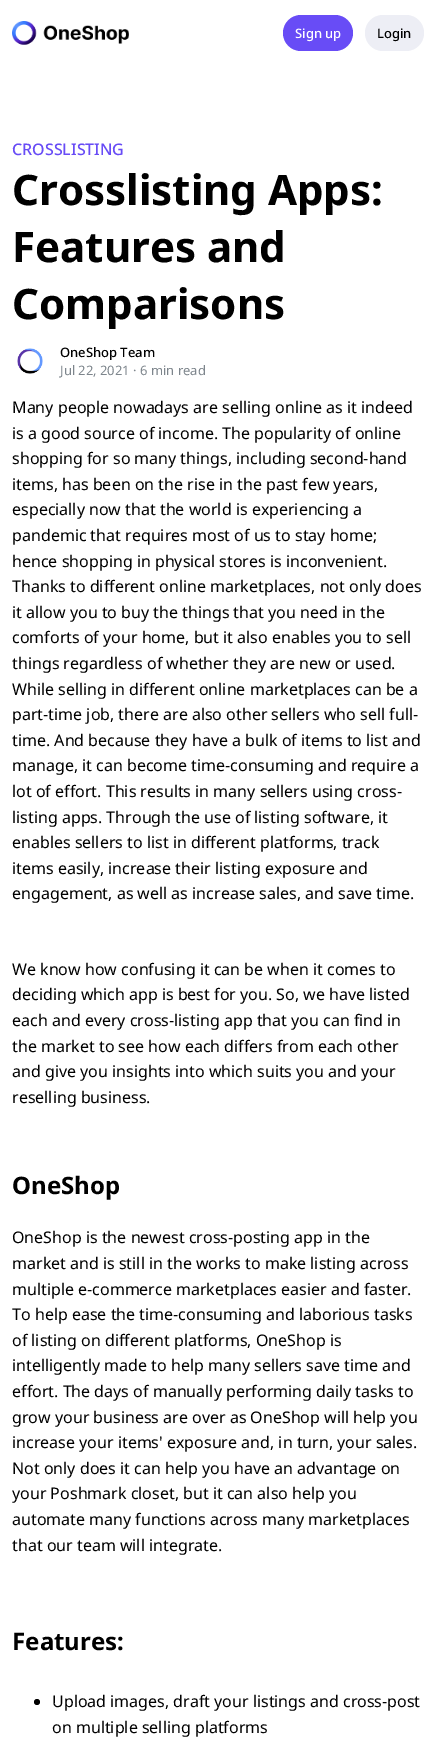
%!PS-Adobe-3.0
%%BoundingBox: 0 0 436 1746
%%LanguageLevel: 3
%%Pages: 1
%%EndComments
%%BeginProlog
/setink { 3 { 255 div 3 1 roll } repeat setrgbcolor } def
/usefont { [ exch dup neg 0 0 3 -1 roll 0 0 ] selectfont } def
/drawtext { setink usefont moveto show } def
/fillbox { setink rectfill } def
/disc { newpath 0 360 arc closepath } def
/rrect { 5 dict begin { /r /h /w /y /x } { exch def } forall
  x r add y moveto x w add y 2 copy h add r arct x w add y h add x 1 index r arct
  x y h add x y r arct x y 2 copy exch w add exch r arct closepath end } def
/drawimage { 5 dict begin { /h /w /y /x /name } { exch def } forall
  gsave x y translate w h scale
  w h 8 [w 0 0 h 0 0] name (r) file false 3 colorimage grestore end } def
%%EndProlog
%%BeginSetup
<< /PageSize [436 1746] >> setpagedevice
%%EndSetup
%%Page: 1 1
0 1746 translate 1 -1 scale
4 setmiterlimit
0 0 436 1746 255 255 255 fillbox
(assets/img1.rgb) 12 21 117 24 drawimage
104 76 246 setink
283 15 70 36 18 rrect fill
(Sign up) 295 38 /NotoSans-Medium 13 255 255 255 drawtext
237 238 245 setink
365 15 59 36 18 rrect fill
(Login) 377 38 /NotoSans-Medium 13 0 0 0 drawtext
(CROSSLISTING) 12 155 /NotoSans-Medium 16 104 76 246 drawtext
(Crosslisting Apps:) 12 205 /NotoSans-Bold 42 0 0 0 drawtext
(Features and) 12 262 /NotoSans-Bold 42 0 0 0 drawtext
(Comparisons) 12 319 /NotoSans-Bold 42 0 0 0 drawtext
(assets/img2.rgb) 17 348 26 26 drawimage
(OneShop Team) 60 357 /NotoSans-Medium 13 0 0 0 drawtext
(Jul 22, 2021 · 6 min read) 60 375 /NotoSans-Regular 13 125 133 140 drawtext
(Many people nowadays are selling online as it indeed) 12 413 /NotoSans-Regular 16 0 0 0 drawtext
(is a good source of income. The popularity of online) 12 439 /NotoSans-Regular 16 0 0 0 drawtext
(shopping for so many things, including second-hand) 12 464 /NotoSans-Regular 16 0 0 0 drawtext
(items, has been on the rise in the past few years,) 12 490 /NotoSans-Regular 16 0 0 0 drawtext
(especially now that the world is experiencing a) 12 515 /NotoSans-Regular 16 0 0 0 drawtext
(pandemic that requires most of us to stay home;) 12 541 /NotoSans-Regular 16 0 0 0 drawtext
(hence shopping in physical stores is inconvenient.) 12 567 /NotoSans-Regular 16 0 0 0 drawtext
(Thanks to different online marketplaces, not only does) 12 592 /NotoSans-Regular 16 0 0 0 drawtext
(it allow you to buy the things that you need in the) 12 618 /NotoSans-Regular 16 0 0 0 drawtext
(comforts of your home, but it also enables you to sell) 12 643 /NotoSans-Regular 16 0 0 0 drawtext
(things regardless of whether they are new or used.) 12 669 /NotoSans-Regular 16 0 0 0 drawtext
(While selling in different online marketplaces can be a) 12 695 /NotoSans-Regular 16 0 0 0 drawtext
(part-time job, there are also other sellers who sell full-) 12 720 /NotoSans-Regular 16 0 0 0 drawtext
(time. And because they have a bulk of items to list and) 12 746 /NotoSans-Regular 16 0 0 0 drawtext
(manage, it can become time-consuming and require a) 12 771 /NotoSans-Regular 16 0 0 0 drawtext
(lot of effort. This results in many sellers using cross-) 12 797 /NotoSans-Regular 16 0 0 0 drawtext
(listing apps. Through the use of listing software, it) 12 823 /NotoSans-Regular 16 0 0 0 drawtext
(enables sellers to list in different platforms, track) 12 848 /NotoSans-Regular 16 0 0 0 drawtext
(items easily, increase their listing exposure and) 12 874 /NotoSans-Regular 16 0 0 0 drawtext
(engagement, as well as increase sales, and save time.) 12 899 /NotoSans-Regular 16 0 0 0 drawtext
(We know how confusing it can be when it comes to) 12 975 /NotoSans-Regular 16 0 0 0 drawtext
(deciding which app is best for you. So, we have listed) 12 1000 /NotoSans-Regular 16 0 0 0 drawtext
(each and every cross-listing app that you can find in) 12 1026 /NotoSans-Regular 16 0 0 0 drawtext
(the market to see how each differs from each other) 12 1052 /NotoSans-Regular 16 0 0 0 drawtext
(and give you insights into which suits you and your) 12 1077 /NotoSans-Regular 16 0 0 0 drawtext
(reselling business.) 12 1103 /NotoSans-Regular 16 0 0 0 drawtext
(OneShop) 12 1194 /NotoSans-Bold 24 0 0 0 drawtext
(OneShop is the newest cross-posting app in the) 12 1243 /NotoSans-Regular 16 0 0 0 drawtext
(market and is still in the works to make listing across) 12 1269 /NotoSans-Regular 16 0 0 0 drawtext
(multiple e-commerce marketplaces easier and faster.) 12 1295 /NotoSans-Regular 16 0 0 0 drawtext
(To help ease the time-consuming and laborious tasks) 12 1320 /NotoSans-Regular 16 0 0 0 drawtext
(of listing on different platforms, OneShop is) 12 1346 /NotoSans-Regular 16 0 0 0 drawtext
(intelligently made to help many sellers save time and) 12 1371 /NotoSans-Regular 16 0 0 0 drawtext
(effort. The days of manually performing daily tasks to) 12 1397 /NotoSans-Regular 16 0 0 0 drawtext
(grow your business are over as OneShop will help you) 12 1423 /NotoSans-Regular 16 0 0 0 drawtext
(increase your items' exposure and, in turn, your sales.) 12 1448 /NotoSans-Regular 16 0 0 0 drawtext
(Not only does it can help you have an advantage on) 12 1474 /NotoSans-Regular 16 0 0 0 drawtext
(your Poshmark closet, but it can also help you) 12 1499 /NotoSans-Regular 16 0 0 0 drawtext
(automate many functions across many marketplaces) 12 1525 /NotoSans-Regular 16 0 0 0 drawtext
(that our team will integrate.) 12 1551 /NotoSans-Regular 16 0 0 0 drawtext
(Features:) 12 1650 /NotoSans-Bold 24 0 0 0 drawtext
37 1702 3 disc fill
(Upload images, draft your listings and cross-post) 52 1707 /NotoSans-Regular 16 0 0 0 drawtext
(on multiple selling platforms) 52 1733 /NotoSans-Regular 16 0 0 0 drawtext
showpage
%%EOF
